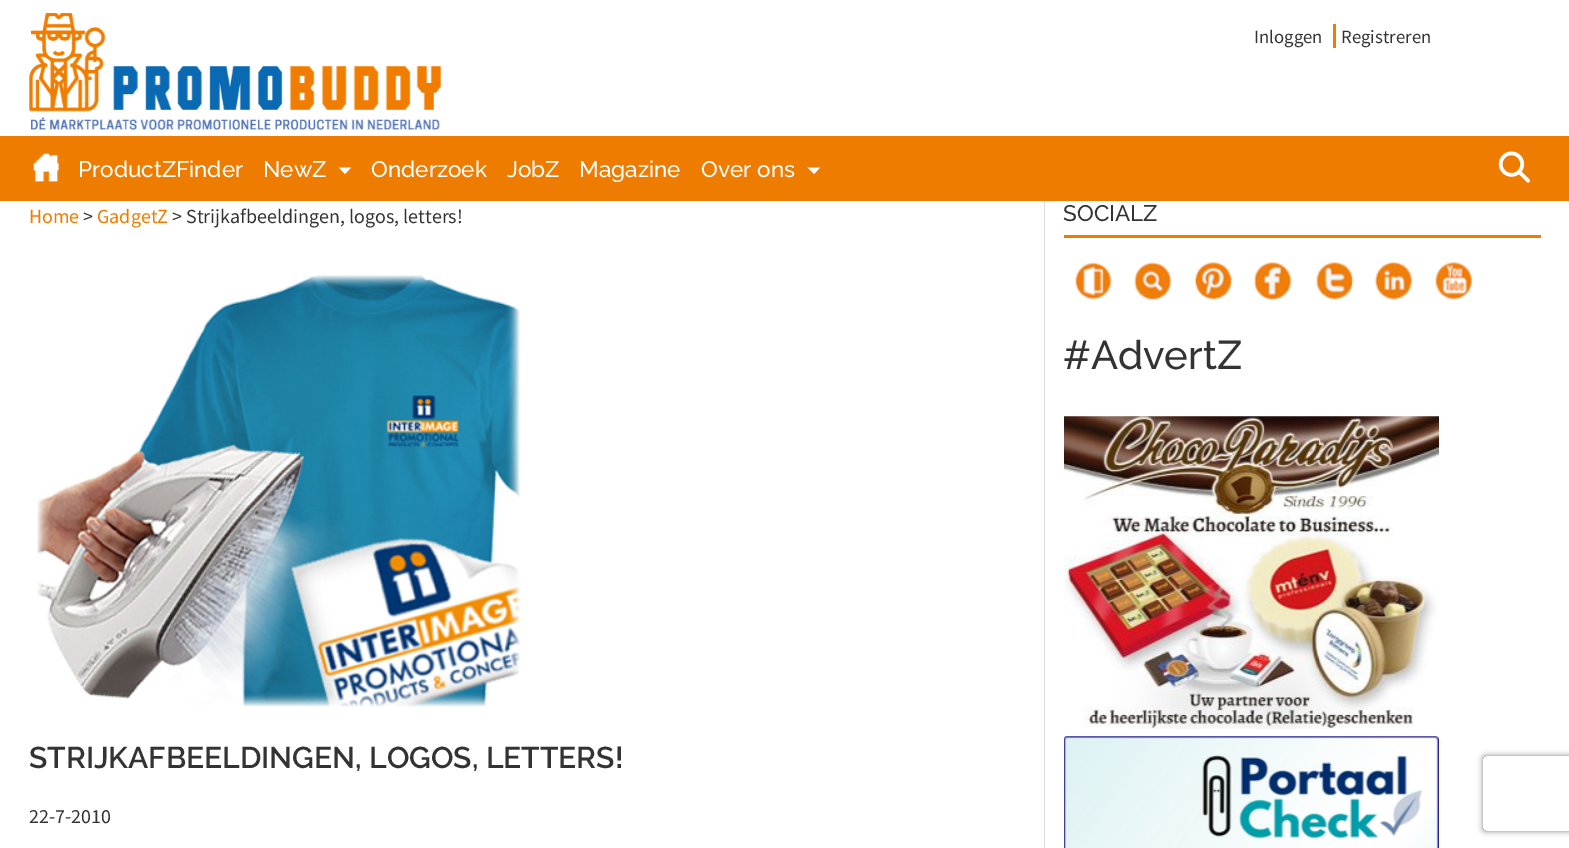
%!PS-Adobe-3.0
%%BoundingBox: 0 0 1569 848
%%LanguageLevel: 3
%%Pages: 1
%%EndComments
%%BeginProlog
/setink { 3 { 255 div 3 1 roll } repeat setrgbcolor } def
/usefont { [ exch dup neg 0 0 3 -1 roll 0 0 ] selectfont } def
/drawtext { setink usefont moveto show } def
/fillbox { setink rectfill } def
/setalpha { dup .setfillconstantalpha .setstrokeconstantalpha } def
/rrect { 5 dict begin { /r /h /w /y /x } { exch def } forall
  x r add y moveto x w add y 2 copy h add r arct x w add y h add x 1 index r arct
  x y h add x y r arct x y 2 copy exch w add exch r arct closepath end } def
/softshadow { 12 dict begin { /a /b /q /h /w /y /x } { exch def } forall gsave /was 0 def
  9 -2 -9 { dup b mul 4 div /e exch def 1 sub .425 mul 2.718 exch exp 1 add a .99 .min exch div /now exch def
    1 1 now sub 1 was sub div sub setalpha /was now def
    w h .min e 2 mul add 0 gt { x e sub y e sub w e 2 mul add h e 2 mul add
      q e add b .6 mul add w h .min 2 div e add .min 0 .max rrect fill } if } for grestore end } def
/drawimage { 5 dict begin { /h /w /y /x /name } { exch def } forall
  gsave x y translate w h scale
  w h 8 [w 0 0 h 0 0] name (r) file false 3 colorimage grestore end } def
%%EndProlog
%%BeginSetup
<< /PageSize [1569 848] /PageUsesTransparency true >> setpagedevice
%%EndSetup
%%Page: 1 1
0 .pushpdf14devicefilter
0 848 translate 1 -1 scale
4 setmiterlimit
0 0 1569 848 255 255 255 fillbox
(assets/img1.rgb) 29 13 412 117 drawimage
(Inloggen) 1254 43 /SourceSansPro-Regular 18.75 51 51 51 drawtext
(Registreren) 1341 43 /SourceSansPro-Regular 18.75 51 51 51 drawtext
1333 24 3 24 238 124 0 fillbox
0 136 1569 65 238 124 0 fillbox
(assets/img2.rgb) 33 153 26 29 drawimage
(ProductZFinder) 78 177 /Raleway-Medium 22.5 255 255 255 drawtext
(NewZ) 263 177 /Raleway-Medium 22.5 255 255 255 drawtext
339 167.5 moveto 351 167.5 lineto 345 174 lineto closepath fill
(Onderzoek) 371 177 /Raleway-Medium 22.5 255 255 255 drawtext
(JobZ) 507 177 /Raleway-Medium 22.5 255 255 255 drawtext
(Magazine) 579 177 /Raleway-Medium 22.5 255 255 255 drawtext
(Over ons) 701 177 /Raleway-Medium 22.5 255 255 255 drawtext
807.5 167.5 moveto 820 167.5 lineto 814 174 lineto closepath fill
(assets/img3.rgb) 1498 151 32 32 drawimage
(Home) 29 223 /SourceSansPro-Regular 20 238 124 0 drawtext
(>) 83 223 /SourceSansPro-Regular 20 51 51 51 drawtext
(GadgetZ) 97 223 /SourceSansPro-Regular 20 238 124 0 drawtext
(> Strijkafbeeldingen, logos, letters!) 172 223 /SourceSansPro-Regular 20 51 51 51 drawtext
(assets/img4.rgb) 37 275 483 432 drawimage
(STRIJKAFBEELDINGEN, LOGOS, LETTERS!) 29 768 /Raleway-SemiBold 30 51 51 51 drawtext
(22-7-2010) 29 823 /SourceSansPro-Regular 20 51 51 51 drawtext
1044 201 1 647 221 221 221 fillbox
(SOCIALZ) 1063 221 /Raleway-Medium 22.5 51 51 51 drawtext
1064 235 477 3 238 124 0 fillbox
(assets/img5.rgb) 1074 262 38 38 drawimage
(assets/img6.rgb) 1134 262 38 38 drawimage
(assets/img7.rgb) 1194 262 39 38 drawimage
(assets/img8.rgb) 1254 262 38 38 drawimage
(assets/img9.rgb) 1316 262 37 38 drawimage
(assets/img10.rgb) 1374 262 39 38 drawimage
(assets/img11.rgb) 1434 262 39 38 drawimage
(#AdvertZ) 1063 369 /Raleway-Medium 40 51 51 51 drawtext
(assets/img12.rgb) 1064 416 375 313 drawimage
(assets/img13.rgb) 1064 736 375 112 drawimage
gsave
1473 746 moveto 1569 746 lineto 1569 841 lineto 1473 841 lineto closepath 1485.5 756 moveto 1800.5 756 lineto 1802 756 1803 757 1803 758.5 curveto 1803 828.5 lineto 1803 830 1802 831 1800.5 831 curveto 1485.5 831 lineto 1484 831 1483 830 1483 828.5 curveto 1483 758.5 lineto 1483 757 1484 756 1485.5 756 curveto closepath eoclip newpath
128 128 128 setink
1483 756 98 75 2.5 3 1 softshadow
grestore
.poppdf14devicefilter showpage
%%EOF
